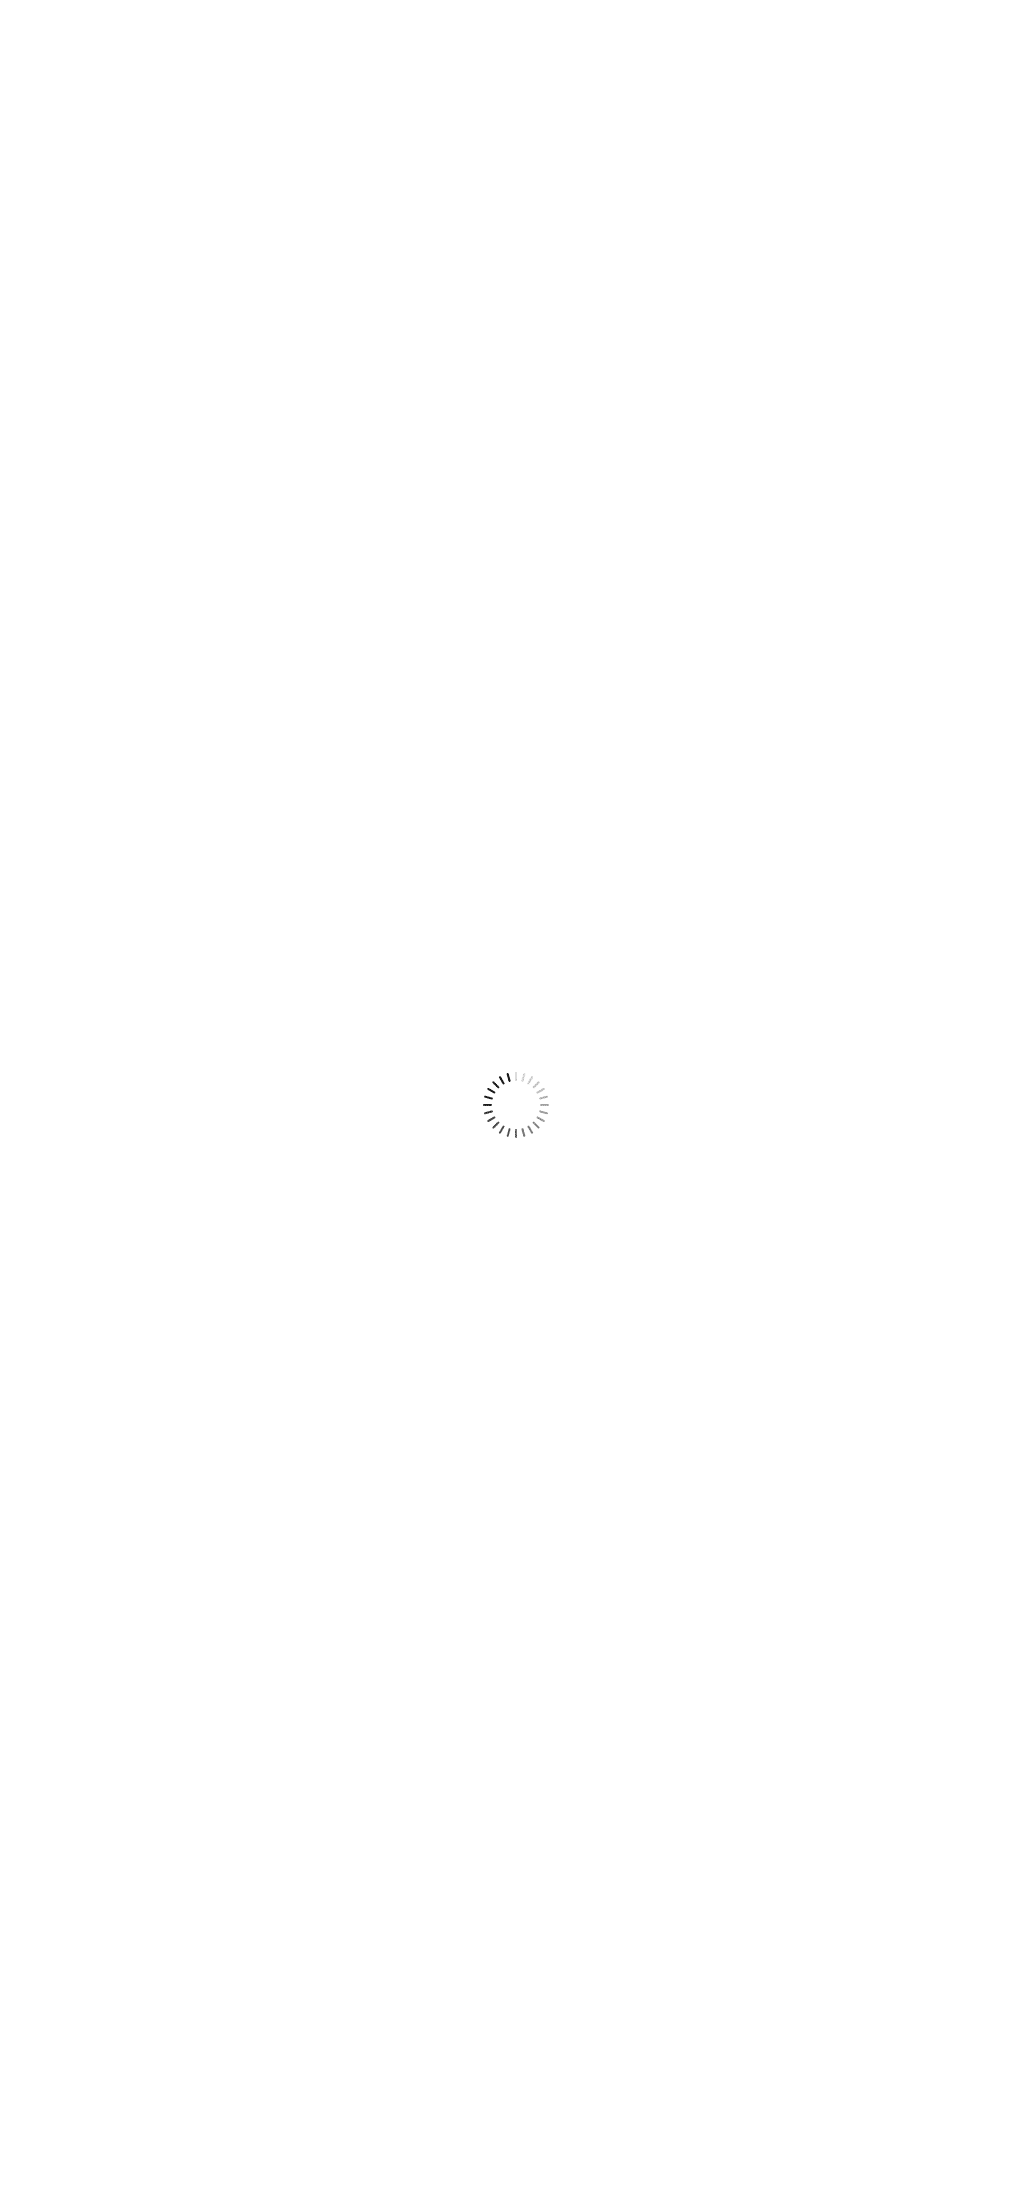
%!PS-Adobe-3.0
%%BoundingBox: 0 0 1032 2210
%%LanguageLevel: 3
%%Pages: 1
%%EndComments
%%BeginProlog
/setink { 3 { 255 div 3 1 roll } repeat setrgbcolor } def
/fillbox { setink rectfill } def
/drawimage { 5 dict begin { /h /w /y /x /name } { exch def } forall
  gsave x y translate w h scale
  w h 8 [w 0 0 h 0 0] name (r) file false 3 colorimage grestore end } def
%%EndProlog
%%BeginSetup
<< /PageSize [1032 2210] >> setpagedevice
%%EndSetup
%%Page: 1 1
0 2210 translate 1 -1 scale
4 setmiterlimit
0 0 1032 2210 255 255 255 fillbox
(assets/img1.rgb) 483 1072 66 66 drawimage
showpage
%%EOF
